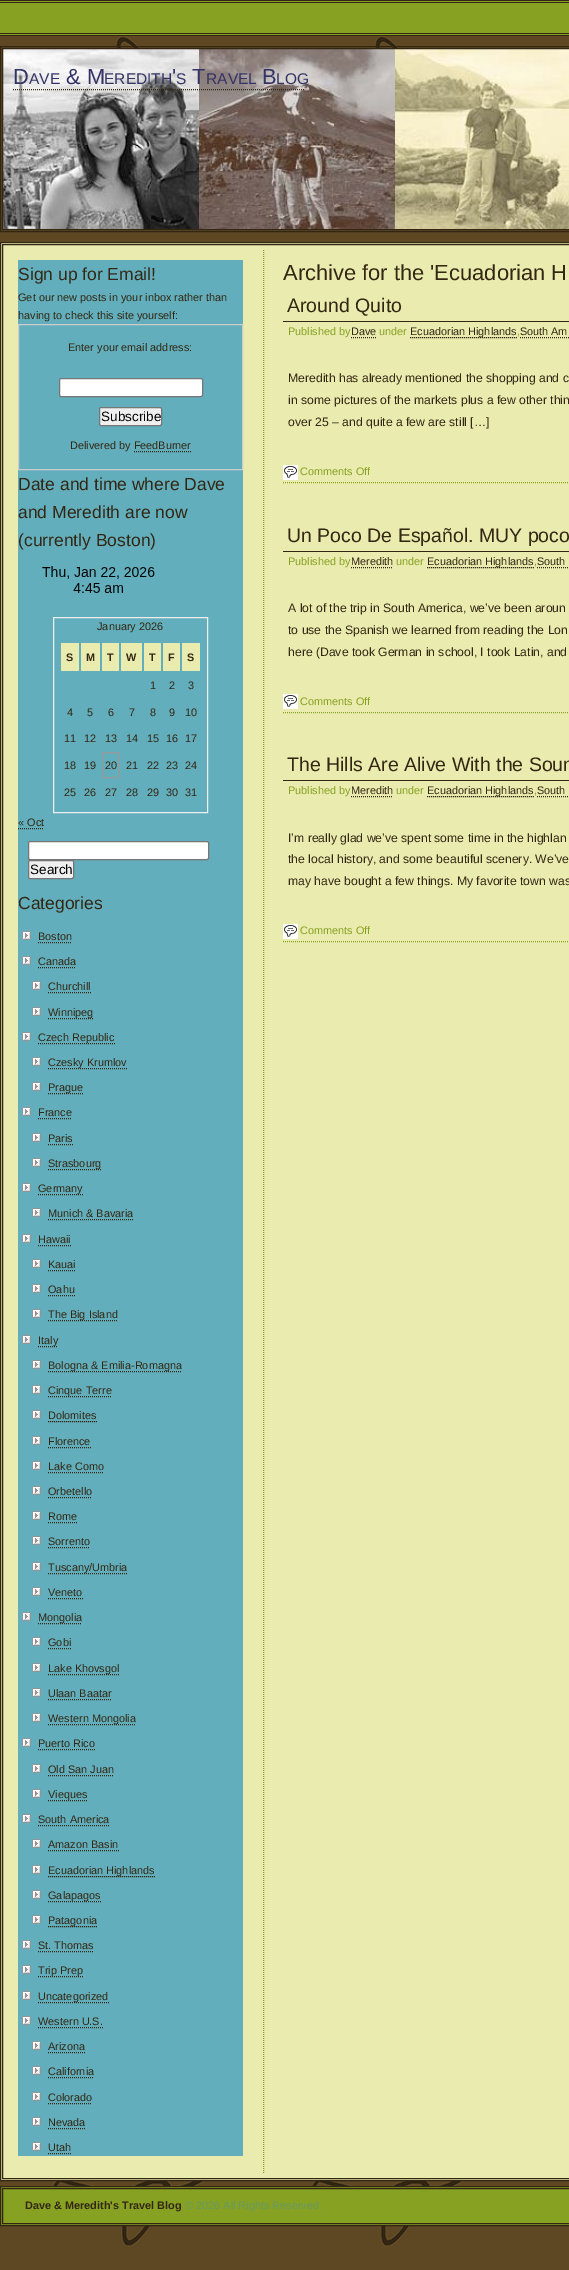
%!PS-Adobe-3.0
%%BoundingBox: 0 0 569 2270
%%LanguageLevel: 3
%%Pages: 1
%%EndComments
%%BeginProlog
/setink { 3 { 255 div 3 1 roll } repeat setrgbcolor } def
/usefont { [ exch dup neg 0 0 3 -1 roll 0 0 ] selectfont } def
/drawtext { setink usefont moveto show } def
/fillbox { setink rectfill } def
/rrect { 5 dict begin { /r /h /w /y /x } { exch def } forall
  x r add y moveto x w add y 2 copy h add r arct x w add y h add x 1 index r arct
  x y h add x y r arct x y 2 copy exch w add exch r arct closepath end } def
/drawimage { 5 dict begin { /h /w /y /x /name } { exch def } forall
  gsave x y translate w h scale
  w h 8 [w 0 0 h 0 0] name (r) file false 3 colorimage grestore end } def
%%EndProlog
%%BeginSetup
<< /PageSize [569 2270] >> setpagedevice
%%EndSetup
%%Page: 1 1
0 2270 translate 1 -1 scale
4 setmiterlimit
0 0 569 2270 255 255 255 fillbox
(assets/img1.rgb) 0 36 569 2234 drawimage
0 1 569 34 135 161 35 fillbox
0 0 569 1 51 39 20 fillbox
0 2 569 1 51 39 20 fillbox
0 33 569 1 51 39 20 fillbox
0 35 569 1 51 39 20 fillbox
(assets/img2.rgb) 3 49 566 180 drawimage
0.5 46.5 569 185 rectstroke
2.5 48.5 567 181 rectstroke
(D) 13 84 /LiberationSans-Regular 21.9 51 51 102 drawtext
(AVE) 29 84 /LiberationSans-Regular 15.5 51 51 102 drawtext
(& M) 66 84 /LiberationSans-Regular 21.9 51 51 102 drawtext
(') 172 84 /LiberationSans-Regular 21.9 51 51 102 drawtext
(T) 192 84 /LiberationSans-Regular 21.9 51 51 102 drawtext
(B) 262 84 /LiberationSans-Regular 21.9 51 51 102 drawtext
(EREDITH S) 104 84 /LiberationSans-Regular 15.5 51 51 102 drawtext
51 39 20 setink
[1 1] 0 setdash
13 89.5 moveto 305 89.5 lineto stroke
(RAVEL) 206 84 /LiberationSans-Regular 15.5 51 51 102 drawtext
(LOG) 276 84 /LiberationSans-Regular 15.5 51 51 102 drawtext
234 235 174 setink
0.5 242.5 moveto 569.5 242.5 lineto 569.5 2180.5 lineto 0.5 2180.5 lineto closepath gsave fill grestore
51 39 20 setink
[] 0 setdash
stroke
2.5 244.5 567 1934 rectstroke
135 161 35 setink
[1 1] 0 setdash
263.5 250 moveto 263.5 2173 lineto stroke
18 260 225 1896 98 174 188 fillbox
(Sign up for Email!) 18 280 /LiberationSans-Regular 17.5 51 39 20 drawtext
(Get our new posts in your inbox rather than) 18 301 /LiberationSans-Regular 10.9 51 39 20 drawtext
(having to check this site yourself:) 18 319 /LiberationSans-Regular 10.9 51 39 20 drawtext
204 204 204 setink
[] 0 setdash
18.5 324.5 224 145 rectstroke
(Enter your email address:) 68 351 /LiberationSans-Regular 10.9 51 39 20 drawtext
255 255 255 setink
59.5 378.5 143 18 1.5 rrect gsave fill grestore
118 118 118 setink
stroke
239 239 239 setink
99.5 407.5 62 18 1.5 rrect gsave fill grestore
118 118 118 setink
stroke
(Subscribe) 101 421 /LiberationSans-Regular 13.5 0 0 0 drawtext
(Delivered by FeedBurner) 70 449 /LiberationSans-Regular 10.9 51 39 20 drawtext
[1 1] 0 setdash
134 451.5 moveto 191 451.5 lineto stroke
(Date and time where Dave) 18 490 /LiberationSans-Regular 17.5 51 39 20 drawtext
(and Meredith are now) 18 518 /LiberationSans-Regular 17.5 51 39 20 drawtext
(\(currently Boston\)) 18 546 /LiberationSans-Regular 17.5 51 39 20 drawtext
(assets/img3.rgb) 42 566 113 27 drawimage
238 238 238 setink
[] 0 setdash
53.5 617.5 154 195 rectstroke
(January 2026) 97 630 /LiberationSans-Regular 10.9 51 39 20 drawtext
61 643 18 28 234 235 174 fillbox
(S) 66 661 /LiberationSans-Bold 10.9 51 39 20 drawtext
81 643 19 28 234 235 174 fillbox
(M) 86 661 /LiberationSans-Bold 10.9 51 39 20 drawtext
102 643 17 28 234 235 174 fillbox
(T) 107 661 /LiberationSans-Bold 10.9 51 39 20 drawtext
121 643 21 28 234 235 174 fillbox
(W) 126 661 /LiberationSans-Bold 10.9 51 39 20 drawtext
144 643 17 28 234 235 174 fillbox
(T) 149 661 /LiberationSans-Bold 10.9 51 39 20 drawtext
163 643 17 28 234 235 174 fillbox
(F) 168 661 /LiberationSans-Bold 10.9 51 39 20 drawtext
182 643 18 28 234 235 174 fillbox
(S) 187 661 /LiberationSans-Bold 10.9 51 39 20 drawtext
(1) 150 689 /LiberationSans-Regular 10.9 51 39 20 drawtext
(2) 169 689 /LiberationSans-Regular 10.9 51 39 20 drawtext
(3) 188 689 /LiberationSans-Regular 10.9 51 39 20 drawtext
(4) 67 716 /LiberationSans-Regular 10.9 51 39 20 drawtext
(5) 87 716 /LiberationSans-Regular 10.9 51 39 20 drawtext
(6) 108 716 /LiberationSans-Regular 10.9 51 39 20 drawtext
(7) 129 716 /LiberationSans-Regular 10.9 51 39 20 drawtext
(8) 150 716 /LiberationSans-Regular 10.9 51 39 20 drawtext
(9) 169 716 /LiberationSans-Regular 10.9 51 39 20 drawtext
(10) 185 716 /LiberationSans-Regular 10.9 51 39 20 drawtext
(11) 64 742 /LiberationSans-Regular 10.9 51 39 20 drawtext
(12) 84 742 /LiberationSans-Regular 10.9 51 39 20 drawtext
(13) 105 742 /LiberationSans-Regular 10.9 51 39 20 drawtext
(14) 126 742 /LiberationSans-Regular 10.9 51 39 20 drawtext
(15) 147 742 /LiberationSans-Regular 10.9 51 39 20 drawtext
(16) 166 742 /LiberationSans-Regular 10.9 51 39 20 drawtext
(17) 185 742 /LiberationSans-Regular 10.9 51 39 20 drawtext
(18) 64 769 /LiberationSans-Regular 10.9 51 39 20 drawtext
(19) 84 769 /LiberationSans-Regular 10.9 51 39 20 drawtext
153 153 153 setink
102.5 752.5 16 25 rectstroke
(20) 105 769 /LiberationSans-Regular 10.9 51 39 20 drawtext
(21) 126 769 /LiberationSans-Regular 10.9 51 39 20 drawtext
(22) 147 769 /LiberationSans-Regular 10.9 51 39 20 drawtext
(23) 166 769 /LiberationSans-Regular 10.9 51 39 20 drawtext
(24) 185 769 /LiberationSans-Regular 10.9 51 39 20 drawtext
(25) 64 796 /LiberationSans-Regular 10.9 51 39 20 drawtext
(26) 84 796 /LiberationSans-Regular 10.9 51 39 20 drawtext
(27) 105 796 /LiberationSans-Regular 10.9 51 39 20 drawtext
(28) 126 796 /LiberationSans-Regular 10.9 51 39 20 drawtext
(29) 147 796 /LiberationSans-Regular 10.9 51 39 20 drawtext
(30) 166 796 /LiberationSans-Regular 10.9 51 39 20 drawtext
(31) 185 796 /LiberationSans-Regular 10.9 51 39 20 drawtext
(« Oct) 18 826 /LiberationSans-Regular 10.9 51 39 20 drawtext
[1 1] 0 setdash
18 828.5 moveto 44 828.5 lineto stroke
255 255 255 setink
28.5 841.5 180 18 1.5 rrect gsave fill grestore
118 118 118 setink
[] 0 setdash
stroke
239 239 239 setink
28.5 860.5 45 18 1.5 rrect gsave fill grestore
118 118 118 setink
stroke
(Search) 30 874 /LiberationSans-Regular 13.5 0 0 0 drawtext
(Categories) 18 909 /LiberationSans-Regular 17.5 51 39 20 drawtext
(assets/img4.rgb) 22 931 9 9 drawimage
(Boston) 38 940 /LiberationSans-Regular 10.9 51 39 20 drawtext
[1 1] 0 setdash
38 942.5 moveto 72 942.5 lineto stroke
(assets/img4.rgb) 22 956 9 9 drawimage
(Canada) 38 965 /LiberationSans-Regular 10.9 51 39 20 drawtext
38 967.5 moveto 76 967.5 lineto stroke
(assets/img4.rgb) 32 981 9 9 drawimage
(Churchill) 48 990 /LiberationSans-Regular 10.9 51 39 20 drawtext
48 992.5 moveto 91 992.5 lineto stroke
(assets/img4.rgb) 32 1007 9 9 drawimage
48 1018.5 moveto 94 1018.5 lineto stroke
(Winnipeg) 48 1016 /LiberationSans-Regular 10.9 51 39 20 drawtext
(assets/img4.rgb) 22 1032 9 9 drawimage
38 1043.5 moveto 115 1043.5 lineto stroke
(Czech Republic) 38 1041 /LiberationSans-Regular 10.9 51 39 20 drawtext
(assets/img4.rgb) 32 1057 9 9 drawimage
48 1068.5 moveto 127 1068.5 lineto stroke
(Czesky Krumlov) 48 1066 /LiberationSans-Regular 10.9 51 39 20 drawtext
(assets/img4.rgb) 32 1082 9 9 drawimage
48 1093.5 moveto 83 1093.5 lineto stroke
(Prague) 48 1091 /LiberationSans-Regular 10.9 51 39 20 drawtext
(assets/img4.rgb) 22 1107 9 9 drawimage
(France) 38 1116 /LiberationSans-Regular 10.9 51 39 20 drawtext
38 1118.5 moveto 72 1118.5 lineto stroke
(assets/img4.rgb) 32 1133 9 9 drawimage
(Paris) 48 1142 /LiberationSans-Regular 10.9 51 39 20 drawtext
48 1144.5 moveto 73 1144.5 lineto stroke
(assets/img4.rgb) 32 1158 9 9 drawimage
48 1169.5 moveto 102 1169.5 lineto stroke
(Strasbourg) 48 1167 /LiberationSans-Regular 10.9 51 39 20 drawtext
(assets/img4.rgb) 22 1183 9 9 drawimage
38 1194.5 moveto 83 1194.5 lineto stroke
(Germany) 38 1192 /LiberationSans-Regular 10.9 51 39 20 drawtext
(assets/img4.rgb) 32 1208 9 9 drawimage
(Munich & Bavaria) 48 1217 /LiberationSans-Regular 10.9 51 39 20 drawtext
48 1219.5 moveto 134 1219.5 lineto stroke
(assets/img4.rgb) 22 1234 9 9 drawimage
(Hawaii) 38 1243 /LiberationSans-Regular 10.9 51 39 20 drawtext
38 1245.5 moveto 71 1245.5 lineto stroke
(assets/img4.rgb) 32 1259 9 9 drawimage
(Kauai) 48 1268 /LiberationSans-Regular 10.9 51 39 20 drawtext
48 1270.5 moveto 76 1270.5 lineto stroke
(assets/img4.rgb) 32 1284 9 9 drawimage
(Oahu) 48 1293 /LiberationSans-Regular 10.9 51 39 20 drawtext
48 1295.5 moveto 75 1295.5 lineto stroke
(assets/img4.rgb) 32 1309 9 9 drawimage
48 1320.5 moveto 118 1320.5 lineto stroke
(The Big Island) 48 1318 /LiberationSans-Regular 10.9 51 39 20 drawtext
(assets/img4.rgb) 22 1335 9 9 drawimage
38 1346.5 moveto 58 1346.5 lineto stroke
(Italy) 38 1344 /LiberationSans-Regular 10.9 51 39 20 drawtext
(assets/img4.rgb) 32 1360 9 9 drawimage
48 1371.5 moveto 182 1371.5 lineto stroke
(Bologna & Emilia-Romagna) 48 1369 /LiberationSans-Regular 10.9 51 39 20 drawtext
(assets/img4.rgb) 32 1385 9 9 drawimage
48 1396.5 moveto 112 1396.5 lineto stroke
(Cinque Terre) 48 1394 /LiberationSans-Regular 10.9 51 39 20 drawtext
(assets/img4.rgb) 32 1410 9 9 drawimage
(Dolomites) 48 1419 /LiberationSans-Regular 10.9 51 39 20 drawtext
48 1421.5 moveto 97 1421.5 lineto stroke
(assets/img4.rgb) 32 1436 9 9 drawimage
(Florence) 48 1445 /LiberationSans-Regular 10.9 51 39 20 drawtext
48 1447.5 moveto 91 1447.5 lineto stroke
(assets/img4.rgb) 32 1461 9 9 drawimage
(Lake Como) 48 1470 /LiberationSans-Regular 10.9 51 39 20 drawtext
48 1472.5 moveto 104 1472.5 lineto stroke
(assets/img4.rgb) 32 1486 9 9 drawimage
(Orbetello) 48 1495 /LiberationSans-Regular 10.9 51 39 20 drawtext
48 1497.5 moveto 92 1497.5 lineto stroke
(assets/img4.rgb) 32 1511 9 9 drawimage
(Rome) 48 1520 /LiberationSans-Regular 10.9 51 39 20 drawtext
48 1522.5 moveto 77 1522.5 lineto stroke
(assets/img4.rgb) 32 1536 9 9 drawimage
(Sorrento) 48 1545 /LiberationSans-Regular 10.9 51 39 20 drawtext
48 1547.5 moveto 90 1547.5 lineto stroke
(assets/img4.rgb) 32 1562 9 9 drawimage
48 1573.5 moveto 128 1573.5 lineto stroke
(Tuscany/Umbria) 48 1571 /LiberationSans-Regular 10.9 51 39 20 drawtext
(assets/img4.rgb) 32 1587 9 9 drawimage
(Veneto) 48 1596 /LiberationSans-Regular 10.9 51 39 20 drawtext
48 1598.5 moveto 83 1598.5 lineto stroke
(assets/img4.rgb) 22 1612 9 9 drawimage
38 1623.5 moveto 82 1623.5 lineto stroke
(Mongolia) 38 1621 /LiberationSans-Regular 10.9 51 39 20 drawtext
(assets/img4.rgb) 32 1637 9 9 drawimage
(Gobi) 48 1646 /LiberationSans-Regular 10.9 51 39 20 drawtext
48 1648.5 moveto 71 1648.5 lineto stroke
(assets/img4.rgb) 32 1663 9 9 drawimage
48 1674.5 moveto 120 1674.5 lineto stroke
(Lake Khovsgol) 48 1672 /LiberationSans-Regular 10.9 51 39 20 drawtext
(assets/img4.rgb) 32 1688 9 9 drawimage
(Ulaan Baatar) 48 1697 /LiberationSans-Regular 10.9 51 39 20 drawtext
48 1699.5 moveto 112 1699.5 lineto stroke
(assets/img4.rgb) 32 1713 9 9 drawimage
48 1724.5 moveto 136 1724.5 lineto stroke
(Western Mongolia) 48 1722 /LiberationSans-Regular 10.9 51 39 20 drawtext
(assets/img4.rgb) 22 1738 9 9 drawimage
(Puerto Rico) 38 1747 /LiberationSans-Regular 10.9 51 39 20 drawtext
38 1749.5 moveto 95 1749.5 lineto stroke
(assets/img4.rgb) 32 1764 9 9 drawimage
(Old San Juan) 48 1773 /LiberationSans-Regular 10.9 51 39 20 drawtext
48 1775.5 moveto 114 1775.5 lineto stroke
(assets/img4.rgb) 32 1789 9 9 drawimage
48 1800.5 moveto 88 1800.5 lineto stroke
(Vieques) 48 1798 /LiberationSans-Regular 10.9 51 39 20 drawtext
(assets/img4.rgb) 22 1814 9 9 drawimage
(South America) 38 1823 /LiberationSans-Regular 10.9 51 39 20 drawtext
38 1825.5 moveto 110 1825.5 lineto stroke
(assets/img4.rgb) 32 1839 9 9 drawimage
(Amazon Basin) 48 1848 /LiberationSans-Regular 10.9 51 39 20 drawtext
48 1850.5 moveto 119 1850.5 lineto stroke
(assets/img4.rgb) 32 1865 9 9 drawimage
48 1876.5 moveto 155 1876.5 lineto stroke
(Ecuadorian Highlands) 48 1874 /LiberationSans-Regular 10.9 51 39 20 drawtext
(assets/img4.rgb) 32 1890 9 9 drawimage
48 1901.5 moveto 101 1901.5 lineto stroke
(Galapagos) 48 1899 /LiberationSans-Regular 10.9 51 39 20 drawtext
(assets/img4.rgb) 32 1915 9 9 drawimage
48 1926.5 moveto 97 1926.5 lineto stroke
(Patagonia) 48 1924 /LiberationSans-Regular 10.9 51 39 20 drawtext
(assets/img4.rgb) 22 1940 9 9 drawimage
(St. Thomas) 38 1949 /LiberationSans-Regular 10.9 51 39 20 drawtext
38 1951.5 moveto 94 1951.5 lineto stroke
(assets/img4.rgb) 22 1965 9 9 drawimage
38 1976.5 moveto 83 1976.5 lineto stroke
(Trip Prep) 38 1974 /LiberationSans-Regular 10.9 51 39 20 drawtext
(assets/img4.rgb) 22 1991 9 9 drawimage
38 2002.5 moveto 109 2002.5 lineto stroke
(Uncategorized) 38 2000 /LiberationSans-Regular 10.9 51 39 20 drawtext
(assets/img4.rgb) 22 2016 9 9 drawimage
(Western U.S.) 38 2025 /LiberationSans-Regular 10.9 51 39 20 drawtext
38 2027.5 moveto 103 2027.5 lineto stroke
(assets/img4.rgb) 32 2041 9 9 drawimage
(Arizona) 48 2050 /LiberationSans-Regular 10.9 51 39 20 drawtext
48 2052.5 moveto 85 2052.5 lineto stroke
(assets/img4.rgb) 32 2066 9 9 drawimage
(California) 48 2075 /LiberationSans-Regular 10.9 51 39 20 drawtext
48 2077.5 moveto 94 2077.5 lineto stroke
(assets/img4.rgb) 32 2092 9 9 drawimage
(Colorado) 48 2101 /LiberationSans-Regular 10.9 51 39 20 drawtext
48 2103.5 moveto 92 2103.5 lineto stroke
(assets/img4.rgb) 32 2117 9 9 drawimage
(Nevada) 48 2126 /LiberationSans-Regular 10.9 51 39 20 drawtext
48 2128.5 moveto 86 2128.5 lineto stroke
(assets/img4.rgb) 32 2142 9 9 drawimage
(Utah) 48 2151 /LiberationSans-Regular 10.9 51 39 20 drawtext
48 2153.5 moveto 71 2153.5 lineto stroke
(Archive for the 'Ecuadorian H) 283 280 /LiberationSans-Regular 21.9 51 39 20 drawtext
283 321 286 1 51 39 20 fillbox
(Around Quito) 287 312 /LiberationSans-Regular 19.5 51 39 20 drawtext
(Published by) 288 335 /LiberationSans-Regular 10.9 135 161 35 drawtext
(Dave) 351 335 /LiberationSans-Regular 10.9 51 39 20 drawtext
351 337.5 moveto 376 337.5 lineto stroke
(under) 379 335 /LiberationSans-Regular 10.9 135 161 35 drawtext
51 39 20 setink
410 337.5 moveto 517 337.5 lineto stroke
(Ecuadorian Highlands South Am) 410 335 /LiberationSans-Regular 10.9 51 39 20 drawtext
(,) 517 335 /LiberationSans-Regular 10.9 135 161 35 drawtext
51 39 20 setink
520 337.5 moveto 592 337.5 lineto stroke
(Meredith has already mentioned the shopping and c) 288 382 /LiberationSans-Regular 12.2 51 39 20 drawtext
(in some pictures of the markets plus a few other thin) 288 404 /LiberationSans-Regular 12.2 51 39 20 drawtext
(over 25 – and quite a few are still […]) 288 426 /LiberationSans-Regular 12.2 51 39 20 drawtext
(assets/img5.rgb) 283 465 15 15 drawimage
135 161 35 setink
283 482.5 moveto 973 482.5 lineto stroke
(Comments Off) 300 475 /LiberationSans-Regular 10.9 135 161 35 drawtext
283 551 286 1 51 39 20 fillbox
(Un Poco De Español. MUY poco) 287 542 /LiberationSans-Regular 19.5 51 39 20 drawtext
(Published by) 288 565 /LiberationSans-Regular 10.9 135 161 35 drawtext
(Meredith) 351 565 /LiberationSans-Regular 10.9 51 39 20 drawtext
351 567.5 moveto 393 567.5 lineto stroke
(under) 396 565 /LiberationSans-Regular 10.9 135 161 35 drawtext
51 39 20 setink
427 567.5 moveto 534 567.5 lineto stroke
(Ecuadorian Highlands South) 427 565 /LiberationSans-Regular 10.9 51 39 20 drawtext
(,) 534 565 /LiberationSans-Regular 10.9 135 161 35 drawtext
51 39 20 setink
537 567.5 moveto 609 567.5 lineto stroke
(A lot of the trip in South America, we’ve been aroun) 288 612 /LiberationSans-Regular 12.2 51 39 20 drawtext
(to use the Spanish we learned from reading the Lon) 288 634 /LiberationSans-Regular 12.2 51 39 20 drawtext
(here \(Dave took German in school, I took Latin, and) 288 656 /LiberationSans-Regular 12.2 51 39 20 drawtext
(assets/img5.rgb) 283 694 15 15 drawimage
135 161 35 setink
283 712.5 moveto 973 712.5 lineto stroke
(Comments Off) 300 705 /LiberationSans-Regular 10.9 135 161 35 drawtext
283 780 286 1 51 39 20 fillbox
(The Hills Are Alive With the Soun) 287 771 /LiberationSans-Regular 19.5 51 39 20 drawtext
(Published by) 288 794 /LiberationSans-Regular 10.9 135 161 35 drawtext
(Meredith) 351 794 /LiberationSans-Regular 10.9 51 39 20 drawtext
351 796.5 moveto 393 796.5 lineto stroke
(under) 396 794 /LiberationSans-Regular 10.9 135 161 35 drawtext
51 39 20 setink
427 796.5 moveto 534 796.5 lineto stroke
(Ecuadorian Highlands South) 427 794 /LiberationSans-Regular 10.9 51 39 20 drawtext
(,) 534 794 /LiberationSans-Regular 10.9 135 161 35 drawtext
51 39 20 setink
537 796.5 moveto 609 796.5 lineto stroke
(I’m really glad we’ve spent some time in the highlan) 288 842 /LiberationSans-Regular 12.2 51 39 20 drawtext
(the local history, and some beautiful scenery. We’ve) 288 863 /LiberationSans-Regular 12.2 51 39 20 drawtext
(may have bought a few things. My favorite town was) 288 885 /LiberationSans-Regular 12.2 51 39 20 drawtext
(assets/img5.rgb) 283 924 15 15 drawimage
135 161 35 setink
283 941.5 moveto 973 941.5 lineto stroke
(Comments Off) 300 934 /LiberationSans-Regular 10.9 135 161 35 drawtext
0.5 2186.5 moveto 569.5 2186.5 lineto 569.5 2225.5 lineto 0.5 2225.5 lineto closepath gsave fill grestore
51 39 20 setink
[] 0 setdash
stroke
2.5 2188.5 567 35 rectstroke
(Dave & Meredith's Travel Blog) 25 2209 /LiberationSans-Bold 10.9 51 39 20 drawtext
(© 2026 All Rights Reserved .) 185 2209 /LiberationSans-Regular 10.9 102 153 102 drawtext
showpage
%%EOF
